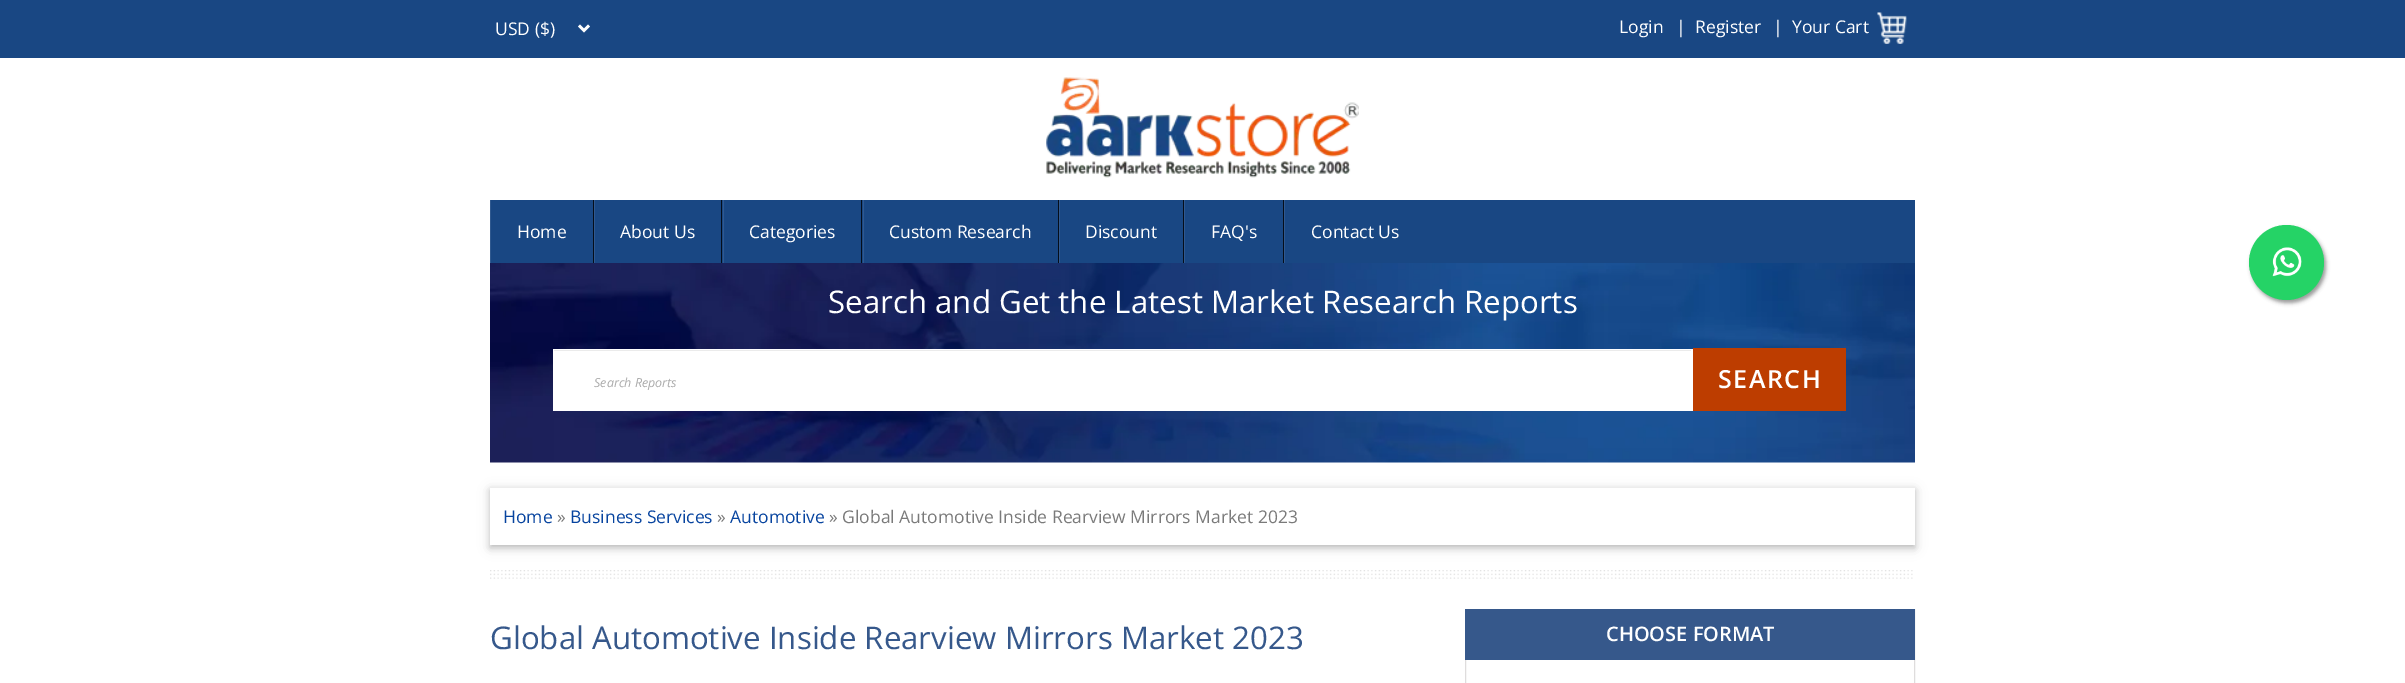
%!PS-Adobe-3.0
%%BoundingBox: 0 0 2405 683
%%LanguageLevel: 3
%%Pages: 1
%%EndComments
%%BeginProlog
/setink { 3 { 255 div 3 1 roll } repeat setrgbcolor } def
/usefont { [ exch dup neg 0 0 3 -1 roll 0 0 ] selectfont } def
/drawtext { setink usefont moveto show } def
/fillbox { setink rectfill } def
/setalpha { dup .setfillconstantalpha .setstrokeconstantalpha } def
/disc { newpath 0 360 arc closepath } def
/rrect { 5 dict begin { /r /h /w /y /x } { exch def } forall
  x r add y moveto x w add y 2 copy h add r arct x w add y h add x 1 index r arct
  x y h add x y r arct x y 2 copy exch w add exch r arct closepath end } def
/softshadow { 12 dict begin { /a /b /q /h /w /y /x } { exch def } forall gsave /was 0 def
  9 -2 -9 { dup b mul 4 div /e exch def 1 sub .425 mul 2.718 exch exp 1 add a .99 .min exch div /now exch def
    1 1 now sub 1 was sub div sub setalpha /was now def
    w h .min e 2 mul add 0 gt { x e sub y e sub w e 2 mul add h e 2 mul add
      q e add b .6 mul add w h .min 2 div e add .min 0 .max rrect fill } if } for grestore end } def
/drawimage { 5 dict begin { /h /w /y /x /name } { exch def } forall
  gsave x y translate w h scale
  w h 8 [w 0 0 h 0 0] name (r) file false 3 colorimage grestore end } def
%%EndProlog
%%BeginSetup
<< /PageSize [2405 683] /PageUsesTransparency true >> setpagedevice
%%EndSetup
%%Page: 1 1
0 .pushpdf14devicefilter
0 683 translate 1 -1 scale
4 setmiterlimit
0 0 2405 683 255 255 255 fillbox
0 0 2405 58 25 71 131 fillbox
255 255 255 setink
2.5 setlinewidth
579 25.5 moveto 584 30.5 lineto 589 25.5 lineto stroke
(USD \($\)) 495 35 /OpenSans-Regular 17.5 255 255 255 drawtext
(Login) 1619 33 /OpenSans-Regular 17.5 255 255 255 drawtext
(|) 1676 33 /OpenSans-Regular 17.5 255 255 255 drawtext
(Register) 1695 33 /OpenSans-Regular 17.5 255 255 255 drawtext
(|) 1773 33 /OpenSans-Regular 17.5 255 255 255 drawtext
(Your Cart) 1792 33 /OpenSans-Regular 17.5 255 255 255 drawtext
(assets/img1.rgb) 1877 12 30 32 drawimage
(assets/img2.rgb) 1046 77 313 101 drawimage
491 200 1424 63 25 71 131 fillbox
593 200 1 63 5 14 26 fillbox
490 200 1 63 48 89 143 fillbox
(Home) 517 238 /OpenSans-Regular 17.5 255 255 255 drawtext
721 200 1 63 5 14 26 fillbox
594 200 1 63 48 89 143 fillbox
(About Us) 620 238 /OpenSans-Regular 17.5 255 255 255 drawtext
861 200 1 63 5 14 26 fillbox
723 200 1 63 48 89 143 fillbox
(Categories) 749 238 /OpenSans-Regular 17.5 255 255 255 drawtext
1058 200 1 63 5 14 26 fillbox
863 200 1 63 48 89 143 fillbox
(Custom Research) 889 238 /OpenSans-Regular 17.5 255 255 255 drawtext
1183 200 1 63 5 14 26 fillbox
1059 200 1 63 48 89 143 fillbox
(Discount) 1085 238 /OpenSans-Regular 17.5 255 255 255 drawtext
1283 200 1 63 5 14 26 fillbox
1184 200 1 63 48 89 143 fillbox
(FAQ's) 1211 238 /OpenSans-Regular 17.5 255 255 255 drawtext
1284 200 1 63 48 89 143 fillbox
(Contact Us) 1311 238 /OpenSans-Regular 17.5 255 255 255 drawtext
(assets/img3.rgb) 490 263 1425 200 drawimage
(Search and Get the Latest Market Research Reports) 828 313 /OpenSans-Regular 31.25 255 255 255 drawtext
553 349 1140 62 255 255 255 fillbox
554 350 1137 1 235 235 235 fillbox
(Search Reports) 594 387 /OpenSans-Italic 12.5 170 170 170 drawtext
1693 348 153 63 189 61 0 fillbox
/OpenSans-SemiBold 25 usefont
255 255 255 setink
1718 388 moveto 1.5 0 (SEARCH) ashow
153 153 153 setink
2251 228 75 75 37.5 2 1 softshadow
37 211 102 setink
2286.5 262.5 37.5 disc fill
(assets/img4.rgb) 2272 247 30 30 drawimage
gsave
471 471 moveto 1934 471 lineto 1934 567 lineto 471 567 lineto closepath 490 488 moveto 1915 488 lineto 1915 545 lineto 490 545 lineto closepath eoclip newpath
0 0 0 setink
490 490 1425 58 0 6 0.12 softshadow
grestore
gsave
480 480 moveto 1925 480 lineto 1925 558 lineto 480 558 lineto closepath 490 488 moveto 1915 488 lineto 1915 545 lineto 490 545 lineto closepath eoclip newpath
0 0 0 setink
490 490 1425 58 0 3 0.16 softshadow
grestore
(Home) 503 523 /OpenSans-Regular 17.5 7 68 159 drawtext
(») 557 523 /OpenSans-Regular 17.5 122 122 122 drawtext
(Business Services) 570 523 /OpenSans-Regular 17.5 7 68 159 drawtext
(») 717 523 /OpenSans-Regular 17.5 122 122 122 drawtext
(Automotive) 730 523 /OpenSans-Regular 17.5 7 68 159 drawtext
(» Global Automotive Inside Rearview Mirrors Market 2023) 829 523 /OpenSans-Regular 17.5 122 122 122 drawtext
(assets/img5.rgb) 490 570 1423 9 drawimage
(Global Automotive Inside Rearview Mirrors Market 2023) 490 649 /OpenSans-Regular 31.25 54 88 139 drawtext
223 221 221 setink
1 setlinewidth
1465.5 609.5 449 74 rectstroke
1465 609 450 51 54 88 139 fillbox
(CHOOSE FORMAT) 1606 641 /OpenSans-SemiBold 20 255 255 255 drawtext
.poppdf14devicefilter showpage
%%EOF
